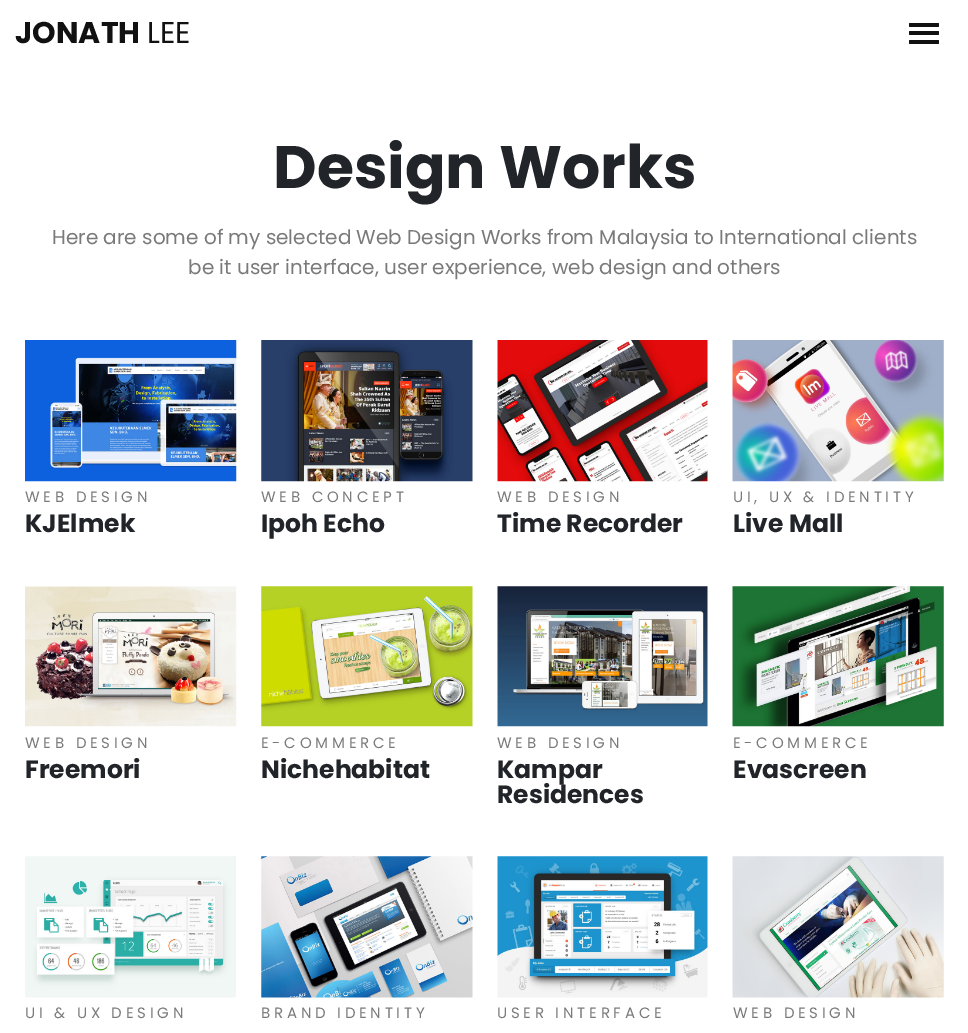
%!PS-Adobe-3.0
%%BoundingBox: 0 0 968 1033
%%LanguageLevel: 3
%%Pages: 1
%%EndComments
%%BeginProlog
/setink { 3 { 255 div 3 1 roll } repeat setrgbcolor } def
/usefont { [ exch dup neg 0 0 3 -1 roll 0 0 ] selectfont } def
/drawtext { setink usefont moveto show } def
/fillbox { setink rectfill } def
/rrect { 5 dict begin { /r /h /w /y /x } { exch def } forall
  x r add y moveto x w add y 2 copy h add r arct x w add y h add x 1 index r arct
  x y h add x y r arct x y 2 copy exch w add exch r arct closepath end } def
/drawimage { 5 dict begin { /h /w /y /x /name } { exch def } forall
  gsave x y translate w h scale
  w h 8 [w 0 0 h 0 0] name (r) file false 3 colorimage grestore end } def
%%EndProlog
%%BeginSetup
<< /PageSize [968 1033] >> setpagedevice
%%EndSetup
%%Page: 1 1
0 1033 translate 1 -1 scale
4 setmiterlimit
0 0 968 1033 255 255 255 fillbox
(JONATH) 15 43 /Poppins-Bold 30 17 17 17 drawtext
(LEE) 147 43 /Poppins-Regular 30 17 17 17 drawtext
909 23 30 4 1 rrect fill
909 31 30 4 1 rrect fill
909 40 30 4 1 rrect fill
(Design Works) 273 188 /Poppins-Bold 60 33 37 41 drawtext
(Here are some of my selected Web Design Works from Malaysia to International clients) 52 244 /Poppins-Regular 20 122 122 122 drawtext
(be it user interface, user experience, web design and others) 188 274 /Poppins-Regular 20 122 122 122 drawtext
(assets/img1.rgb) 25 340 212 142 drawimage
/Poppins-Regular 15 usefont
25 502 moveto 3.75 0 (WEB DESIGN) ashow
(KJElmek) 25 532 /Poppins-Bold 25 33 37 41 drawtext
(assets/img2.rgb) 261 340 212 142 drawimage
/Poppins-Regular 15 usefont
122 122 122 setink
261 502 moveto 3.75 0 (WEB CONCEPT) ashow
(Ipoh Echo) 261 532 /Poppins-Bold 25 33 37 41 drawtext
(assets/img3.rgb) 497 340 211 142 drawimage
/Poppins-Regular 15 usefont
122 122 122 setink
497 502 moveto 3.75 0 (WEB DESIGN) ashow
(Time Recorder) 497 532 /Poppins-Bold 25 33 37 41 drawtext
(assets/img4.rgb) 732 340 212 142 drawimage
/Poppins-Regular 15 usefont
122 122 122 setink
733 502 moveto 3.75 0 (UI, UX & IDENTITY) ashow
(Live Mall) 733 532 /Poppins-Bold 25 33 37 41 drawtext
(assets/img5.rgb) 25 586 212 141 drawimage
/Poppins-Regular 15 usefont
122 122 122 setink
25 748 moveto 3.75 0 (WEB DESIGN) ashow
(Freemori) 25 778 /Poppins-Bold 25 33 37 41 drawtext
(assets/img6.rgb) 261 586 212 141 drawimage
/Poppins-Regular 15 usefont
122 122 122 setink
261 748 moveto 3.75 0 (E-COMMERCE) ashow
(Nichehabitat) 261 778 /Poppins-Bold 25 33 37 41 drawtext
(assets/img7.rgb) 497 586 211 141 drawimage
/Poppins-Regular 15 usefont
122 122 122 setink
497 748 moveto 3.75 0 (WEB DESIGN) ashow
(Kampar) 497 778 /Poppins-Bold 25 33 37 41 drawtext
(Residences) 497 803 /Poppins-Bold 25 33 37 41 drawtext
(assets/img8.rgb) 732 586 212 141 drawimage
/Poppins-Regular 15 usefont
122 122 122 setink
733 748 moveto 3.75 0 (E-COMMERCE) ashow
(Evascreen) 733 778 /Poppins-Bold 25 33 37 41 drawtext
(assets/img9.rgb) 25 856 211 142 drawimage
/Poppins-Regular 15 usefont
122 122 122 setink
25 1018 moveto 3.75 0 (UI & UX DESIGN) ashow
(assets/img10.rgb) 261 856 212 142 drawimage
261 1018 moveto 3.75 0 (BRAND IDENTITY) ashow
(assets/img11.rgb) 497 856 211 142 drawimage
497 1018 moveto 3.75 0 (USER INTERFACE) ashow
(assets/img12.rgb) 732 856 212 142 drawimage
733 1018 moveto 3.75 0 (WEB DESIGN) ashow
showpage
%%EOF
